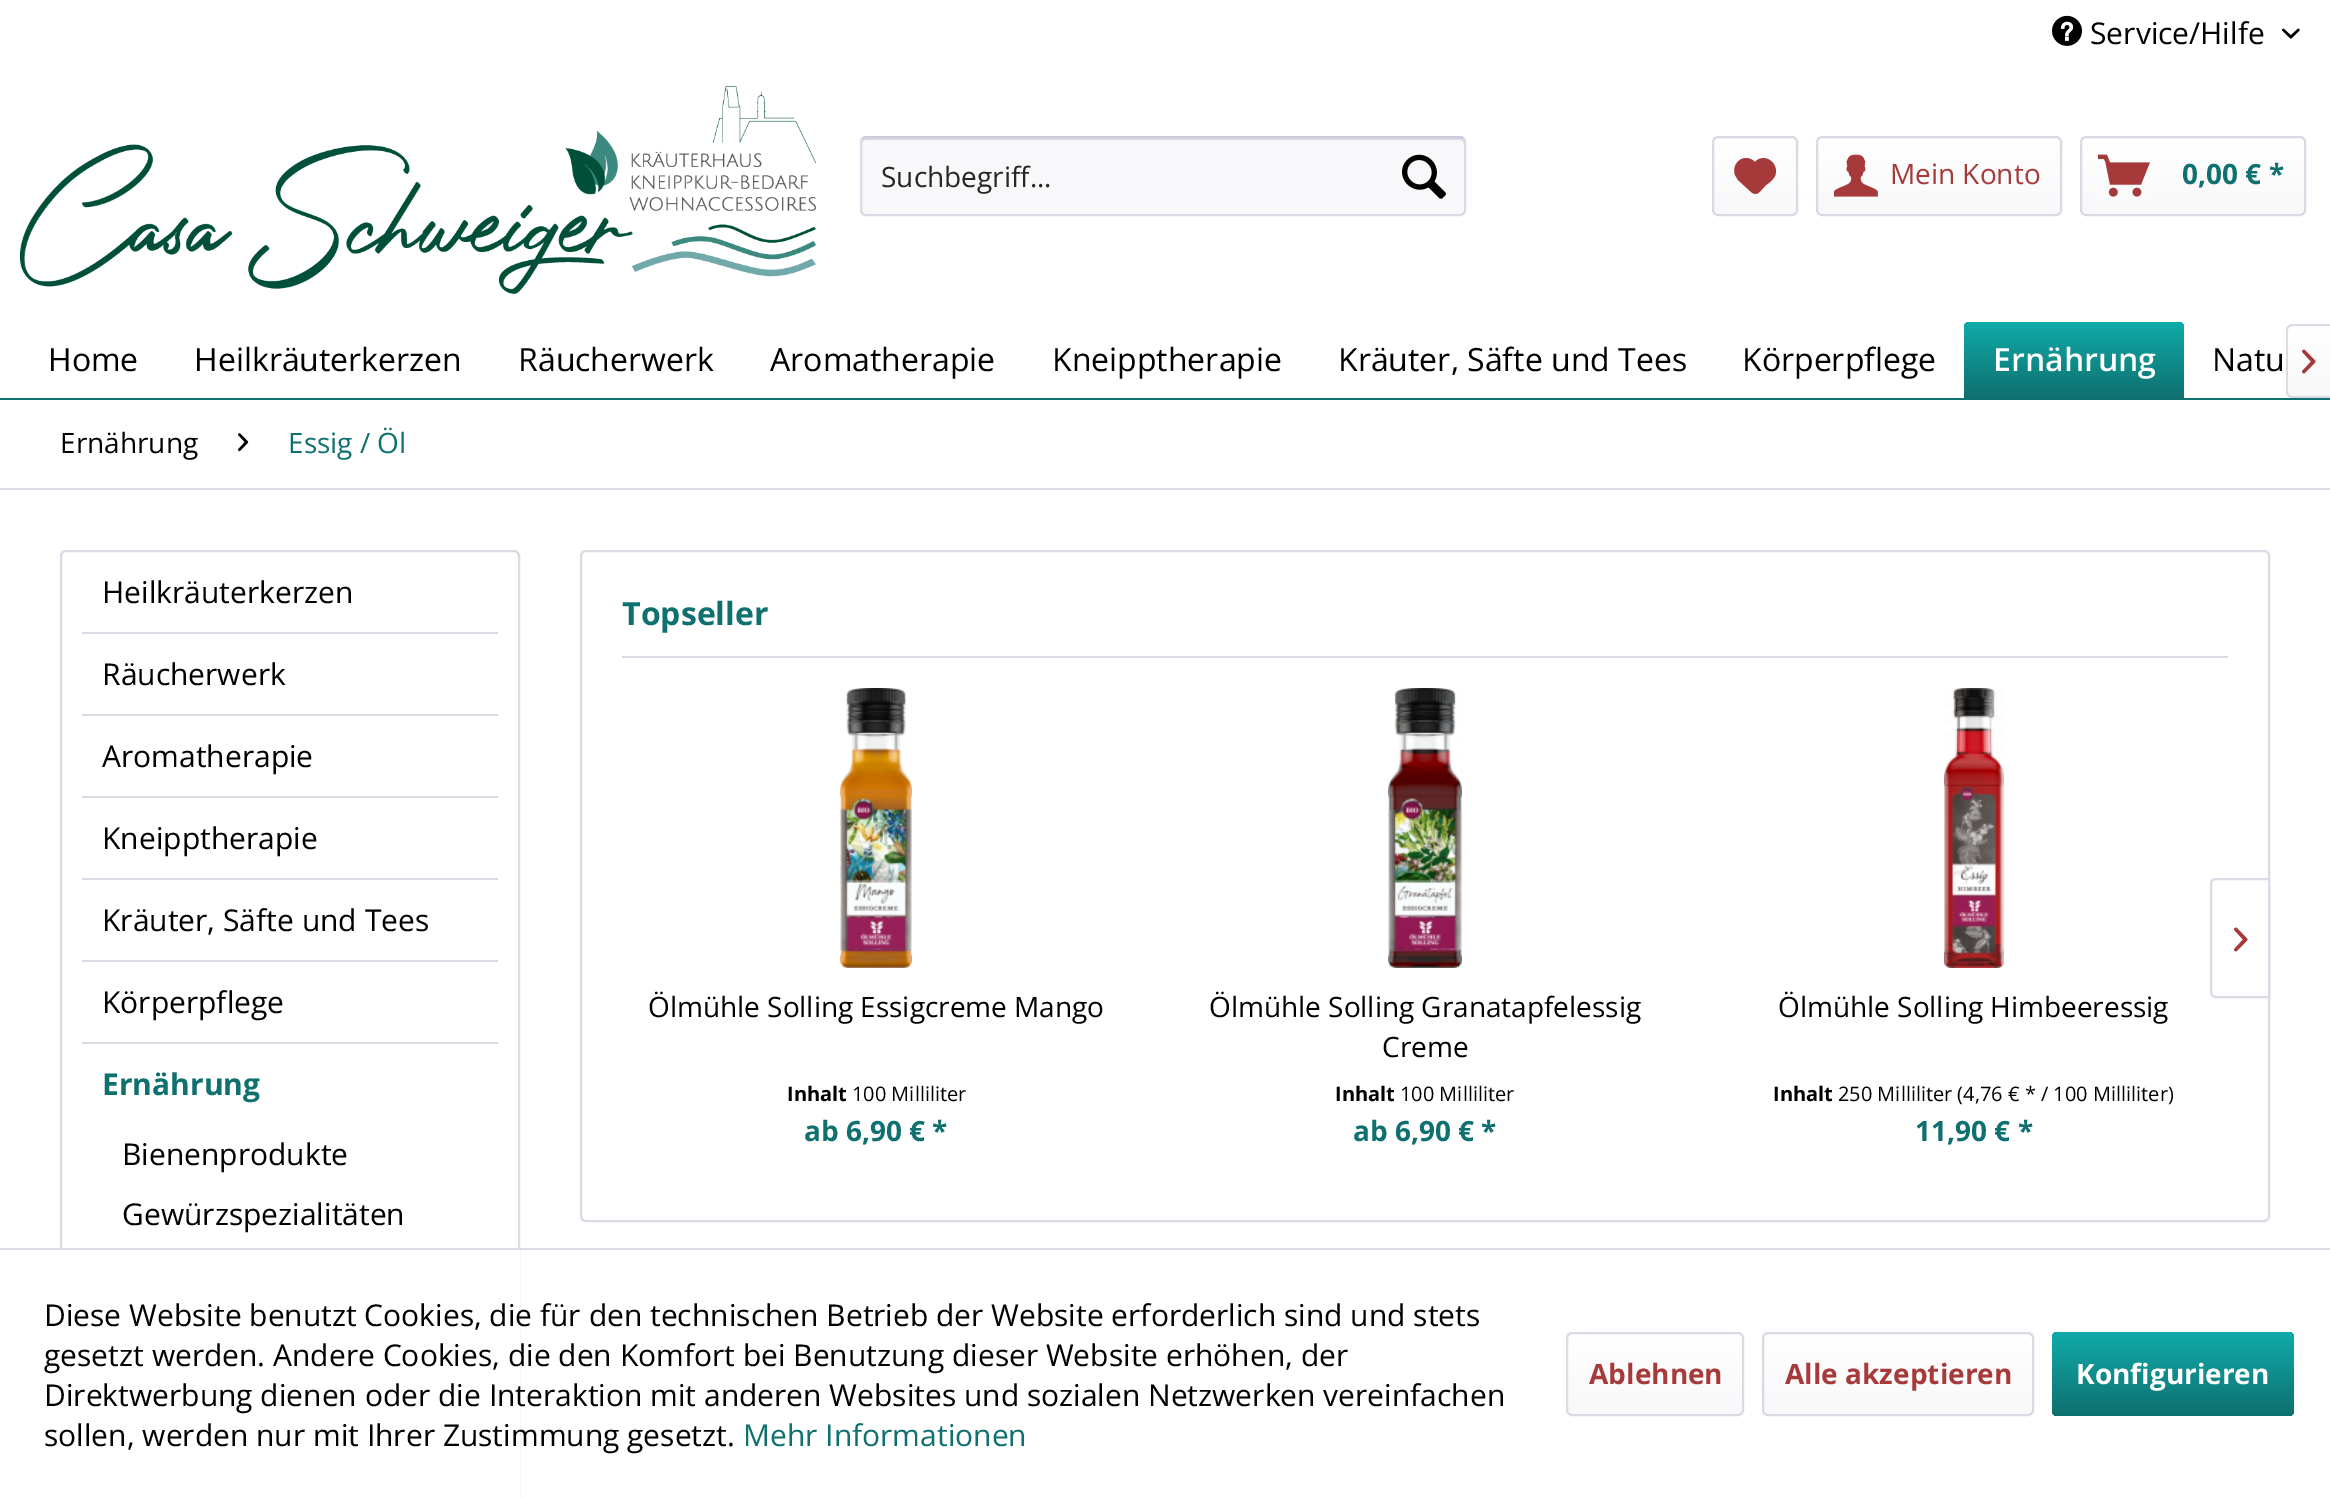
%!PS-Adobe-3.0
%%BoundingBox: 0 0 2330 1498
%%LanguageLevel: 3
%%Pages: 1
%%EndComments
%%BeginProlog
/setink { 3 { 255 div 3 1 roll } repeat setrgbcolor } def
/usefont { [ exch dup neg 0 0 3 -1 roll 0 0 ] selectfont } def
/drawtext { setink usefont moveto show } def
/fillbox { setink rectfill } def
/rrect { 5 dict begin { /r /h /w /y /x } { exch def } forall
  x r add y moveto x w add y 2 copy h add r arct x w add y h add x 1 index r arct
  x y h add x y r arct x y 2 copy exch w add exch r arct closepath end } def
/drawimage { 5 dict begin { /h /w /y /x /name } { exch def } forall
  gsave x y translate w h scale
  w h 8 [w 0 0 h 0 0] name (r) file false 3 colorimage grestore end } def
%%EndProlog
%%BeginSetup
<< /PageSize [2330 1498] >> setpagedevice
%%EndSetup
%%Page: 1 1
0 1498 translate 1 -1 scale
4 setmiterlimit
0 0 2330 1498 255 255 255 fillbox
(assets/img1.rgb) 2052 15 30 31 drawimage
(Service/Hilfe) 2090 44 /OpenSans-Regular 30 0 0 0 drawtext
(assets/img2.rgb) 2282 28 18 11 drawimage
(assets/img3.rgb) 20 86 796 208 drawimage
248 248 250 setink
860 136 606 80 6 rrect fill
218 218 229 setink
866 140 moveto 1460 140 lineto 1462 140 1464 142 1464 144 curveto 1464 142 lineto 1464 140 1462 138 1460 138 curveto 866 138 lineto 864 138 862 140 862 142 curveto 862 144 lineto 862 142 864 140 866 140 curveto closepath fill
203 203 219 setink
2 setlinewidth
862.5 138.5 moveto 863.5 137.5 864.5 137 866 137 curveto 1460 137 lineto 1461.5 137 1462.5 137.5 1463.5 138.5 curveto stroke
218 218 229 setink
1463.5 138.5 moveto 1464.5 139.5 1465 140.5 1465 142 curveto 1465 210 lineto 1465 211.5 1464.5 212.5 1463.5 213.5 curveto 1462.5 214.5 1461.5 215 1460 215 curveto 866 215 lineto 864.5 215 863.5 214.5 862.5 213.5 curveto 861.5 212.5 861 211.5 861 210 curveto 861 142 lineto 861 140.5 861.5 139.5 862.5 138.5 curveto stroke
(Suchbegriff...) 881 187 /OpenSans-Regular 28 38 38 38 drawtext
(assets/img4.rgb) 1402 154 44 45 drawimage
gsave 1714 138 82 76 4 rrect clip newpath
<< /ShadingType 2 /ColorSpace /DeviceRGB /Coords [1755 138 1755 214] /Extend [true true] /Function << /FunctionType 2 /Domain [0 1] /C0 [1 1 1] /C1 [0.973 0.973 0.98] /N 1 >> >> shfill grestore
218 218 229 setink
1713 137 84 78 5 rrect stroke
166 58 59 setink
1746 158 moveto 1738 158 1732 167 1735 175 curveto 1738 180 lineto 1750 191 lineto 1757 198 1760 191 1766 185 curveto 1769 183 1773 180 1775 176 curveto 1780 163 1764 152 1755 162 curveto 1753 160 1750 158 1746 158 curveto closepath fill
gsave 1818 138 242 76 4 rrect clip newpath
<< /ShadingType 2 /ColorSpace /DeviceRGB /Coords [1939 138 1939 214] /Extend [true true] /Function << /FunctionType 2 /Domain [0 1] /C0 [1 1 1] /C1 [0.973 0.973 0.98] /N 1 >> >> shfill grestore
218 218 229 setink
1817 137 244 78 5 rrect stroke
(assets/img5.rgb) 1834 154 44 43 drawimage
(Mein Konto) 1890 184 /OpenSans-Regular 28 166 58 59 drawtext
gsave 2082 138 222 76 4 rrect clip newpath
<< /ShadingType 2 /ColorSpace /DeviceRGB /Coords [2193 138 2193 214] /Extend [true true] /Function << /FunctionType 2 /Domain [0 1] /C0 [1 1 1] /C1 [0.973 0.973 0.98] /N 1 >> >> shfill grestore
218 218 229 setink
2081 137 224 78 5 rrect stroke
(assets/img6.rgb) 2098 154 52 43 drawimage
(0,00 € *) 2182 184 /OpenSans-Bold 28 14 112 111 drawtext
0 398 2330 2 14 112 111 fillbox
(Home) 48 371 /OpenSans-Regular 32 0 0 0 drawtext
(Heilkräuterkerzen) 194 371 /OpenSans-Regular 32 0 0 0 drawtext
(Räucherwerk) 518 371 /OpenSans-Regular 32 0 0 0 drawtext
(Aromatherapie) 770 371 /OpenSans-Regular 32 0 0 0 drawtext
(Kneipptherapie) 1052 371 /OpenSans-Regular 32 0 0 0 drawtext
(Kräuter, Säfte und Tees) 1338 371 /OpenSans-Regular 32 0 0 0 drawtext
(Körperpflege) 1742 371 /OpenSans-Regular 32 0 0 0 drawtext
gsave 1970 322 moveto 2178 322 lineto 2181.5 322 2184 324.5 2184 328 curveto 2184 398 lineto 1964 398 lineto 1964 328 lineto 1964 324.5 1966.5 322 1970 322 curveto closepath clip newpath
<< /ShadingType 2 /ColorSpace /DeviceRGB /Coords [2074 322 2074 398] /Extend [true true] /Function << /FunctionType 2 /Domain [0 1] /C0 [0.063 0.671 0.663] /C1 [0.055 0.439 0.435] /N 1 >> >> shfill grestore
(Ernährung) 1993 371 /OpenSans-SemiBold 32 255 255 255 drawtext
(Natu) 2212 371 /OpenSans-Regular 32 0 0 0 drawtext
gsave 2292 326 moveto 2330 326 lineto 2330 396 lineto 2292 396 lineto 2290 396 2288 394 2288 392 curveto 2288 330 lineto 2288 328 2290 326 2292 326 curveto closepath clip newpath
<< /ShadingType 2 /ColorSpace /DeviceRGB /Coords [2309 326 2309 396] /Extend [true true] /Function << /FunctionType 2 /Domain [0 1] /C0 [1 1 1] /C1 [0.973 0.973 0.98] /N 1 >> >> shfill grestore
218 218 229 setink
2292 324 moveto 2330 324 lineto 2330 398 lineto 2292 398 lineto 2289 398 2286 395 2286 392 curveto 2286 330 lineto 2286 327 2289 324 2292 324 curveto closepath 2292 326 moveto 2330 326 lineto 2330 396 lineto 2292 396 lineto 2290 396 2288 394 2288 392 curveto 2288 330 lineto 2288 328 2290 326 2292 326 curveto closepath eofill
(assets/img7.rgb) 2302 349 14 25 drawimage
0 488 2330 2 218 218 229 fillbox
(Ernährung) 60 453 /OpenSans-Regular 28 0 0 0 drawtext
(assets/img8.rgb) 238 433 11 19 drawimage
(Essig / Öl) 288 453 /OpenSans-Regular 28 14 112 111 drawtext
218 218 229 setink
61 551 458 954 5 rrect stroke
82 632 416 2 218 218 229 fillbox
(Heilkräuterkerzen) 102 603 /OpenSans-Regular 30 0 0 0 drawtext
82 714 416 2 218 218 229 fillbox
(Räucherwerk) 102 685 /OpenSans-Regular 30 0 0 0 drawtext
82 796 416 2 218 218 229 fillbox
(Aromatherapie) 102 767 /OpenSans-Regular 30 0 0 0 drawtext
82 878 416 2 218 218 229 fillbox
(Kneipptherapie) 102 849 /OpenSans-Regular 30 0 0 0 drawtext
82 960 416 2 218 218 229 fillbox
(Kräuter, Säfte und Tees) 102 931 /OpenSans-Regular 30 0 0 0 drawtext
82 1042 416 2 218 218 229 fillbox
(Körperpflege) 102 1013 /OpenSans-Regular 30 0 0 0 drawtext
(Ernährung) 102 1095 /OpenSans-Bold 30 14 112 111 drawtext
(Bienenprodukte) 122 1165 /OpenSans-Regular 30 0 0 0 drawtext
(Gewürzspezialitäten) 122 1225 /OpenSans-Regular 30 0 0 0 drawtext
218 218 229 setink
581 551 1688 670 5 rrect stroke
622 656 1606 2 218 218 229 fillbox
(Topseller) 622 625 /OpenSans-Bold 32 14 112 111 drawtext
218 218 229 setink
2216 879 moveto 2269 879 lineto 2269 997 lineto 2216 997 lineto 2213 997 2211 995 2211 992 curveto 2211 884 lineto 2211 881 2213 879 2216 879 curveto closepath stroke
(assets/img9.rgb) 2234 927 14 25 drawimage
(assets/img10.rgb) 840 688 72 280 drawimage
(Ölmühle Solling Essigcreme Mango) 648 1017 /OpenSans-Regular 28 0 0 0 drawtext
(Inhalt) 787 1101 /OpenSans-Bold 20 0 0 0 drawtext
(100 Milliliter) 852 1101 /OpenSans-Regular 20 0 0 0 drawtext
(ab 6,90 € *) 804 1141 /OpenSans-Bold 28 14 112 111 drawtext
(assets/img11.rgb) 1388 688 74 280 drawimage
(Ölmühle Solling Granatapfelessig) 1209 1017 /OpenSans-Regular 28 0 0 0 drawtext
(Creme) 1382 1057 /OpenSans-Regular 28 0 0 0 drawtext
(Inhalt) 1335 1101 /OpenSans-Bold 20 0 0 0 drawtext
(100 Milliliter) 1400 1101 /OpenSans-Regular 20 0 0 0 drawtext
(ab 6,90 € *) 1353 1141 /OpenSans-Bold 28 14 112 111 drawtext
(assets/img12.rgb) 1944 688 60 280 drawimage
(Ölmühle Solling Himbeeressig) 1778 1017 /OpenSans-Regular 28 0 0 0 drawtext
(Inhalt) 1773 1101 /OpenSans-Bold 20 0 0 0 drawtext
(250 Milliliter \(4,76 € * / 100 Milliliter\)) 1838 1101 /OpenSans-Regular 20 0 0 0 drawtext
(11,90 € *) 1915 1141 /OpenSans-Bold 28 14 112 111 drawtext
60 1250 460 248 255 255 255 fillbox
0 1248 2330 2 218 218 229 fillbox
(Diese Website benutzt Cookies, die für den technischen Betrieb der Website erforderlich sind und stets) 44 1326 /OpenSans-Regular 30 0 0 0 drawtext
(gesetzt werden. Andere Cookies, die den Komfort bei Benutzung dieser Website erhöhen, der) 44 1366 /OpenSans-Regular 30 0 0 0 drawtext
(Direktwerbung dienen oder die Interaktion mit anderen Websites und sozialen Netzwerken vereinfachen) 44 1406 /OpenSans-Regular 30 0 0 0 drawtext
(sollen, werden nur mit Ihrer Zustimmung gesetzt.) 44 1446 /OpenSans-Regular 30 0 0 0 drawtext
(Mehr Informationen) 743 1446 /OpenSans-Regular 30 14 112 111 drawtext
gsave 1568 1334 174 80 4 rrect clip newpath
<< /ShadingType 2 /ColorSpace /DeviceRGB /Coords [1655 1334 1655 1414] /Extend [true true] /Function << /FunctionType 2 /Domain [0 1] /C0 [1 1 1] /C1 [0.973 0.973 0.98] /N 1 >> >> shfill grestore
218 218 229 setink
1567 1333 176 82 5 rrect stroke
(Ablehnen) 1589 1384 /OpenSans-Bold 28 166 58 59 drawtext
gsave 1764 1334 268 80 4 rrect clip newpath
<< /ShadingType 2 /ColorSpace /DeviceRGB /Coords [1898 1334 1898 1414] /Extend [true true] /Function << /FunctionType 2 /Domain [0 1] /C0 [1 1 1] /C1 [0.973 0.973 0.98] /N 1 >> >> shfill grestore
218 218 229 setink
1763 1333 270 82 5 rrect stroke
(Alle akzeptieren) 1785 1384 /OpenSans-Bold 28 166 58 59 drawtext
gsave 2052 1332 242 84 6 rrect clip newpath
<< /ShadingType 2 /ColorSpace /DeviceRGB /Coords [2173 1332 2173 1416] /Extend [true true] /Function << /FunctionType 2 /Domain [0 1] /C0 [0.063 0.671 0.663] /C1 [0.055 0.439 0.435] /N 1 >> >> shfill grestore
(Konfigurieren) 2076 1384 /OpenSans-Bold 28 255 255 255 drawtext
showpage
%%EOF
